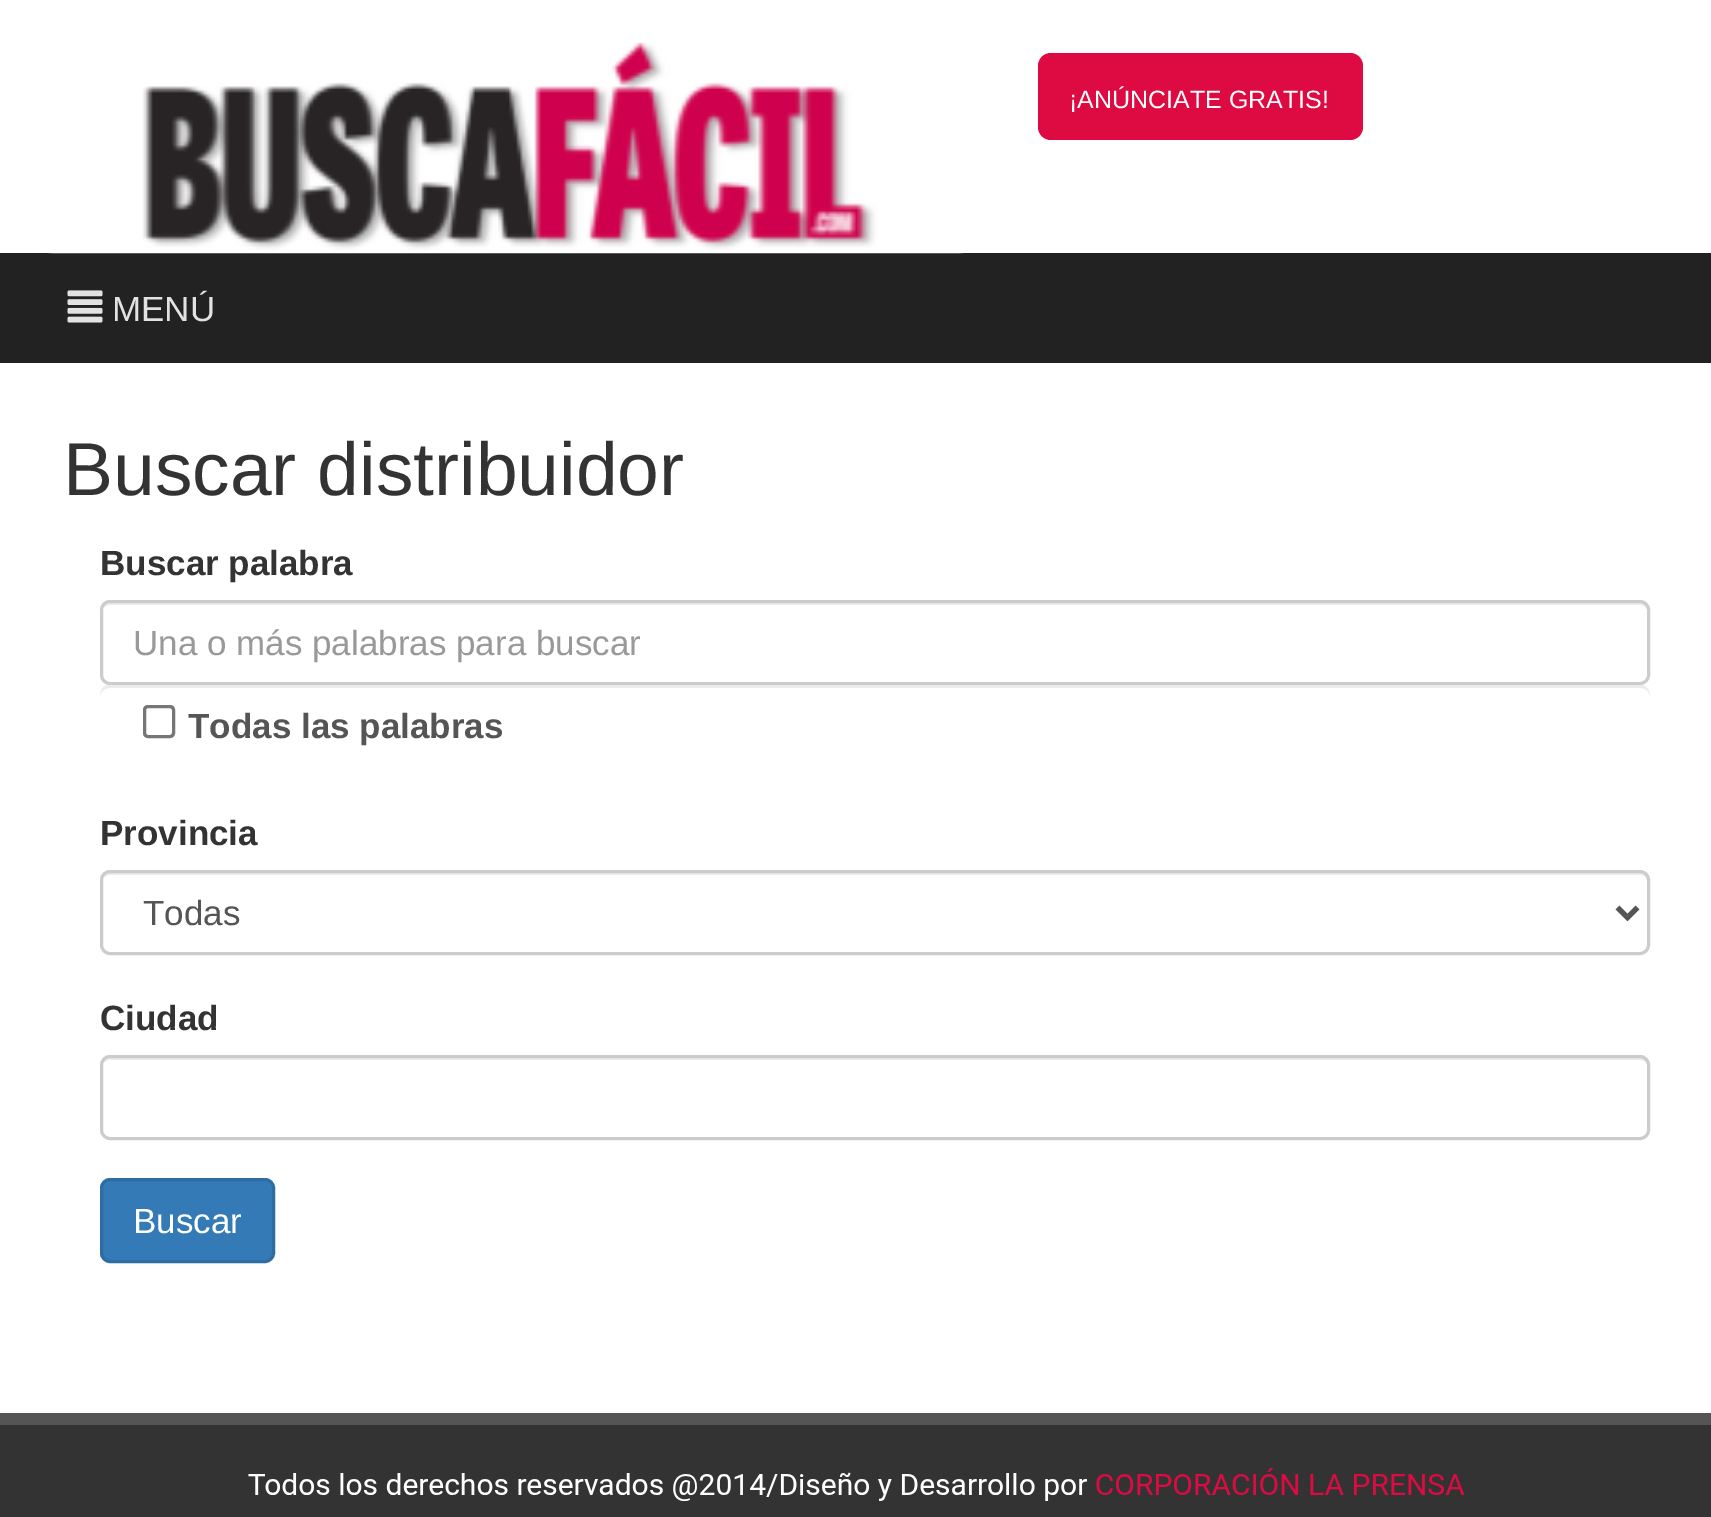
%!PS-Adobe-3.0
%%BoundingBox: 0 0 1711 1517
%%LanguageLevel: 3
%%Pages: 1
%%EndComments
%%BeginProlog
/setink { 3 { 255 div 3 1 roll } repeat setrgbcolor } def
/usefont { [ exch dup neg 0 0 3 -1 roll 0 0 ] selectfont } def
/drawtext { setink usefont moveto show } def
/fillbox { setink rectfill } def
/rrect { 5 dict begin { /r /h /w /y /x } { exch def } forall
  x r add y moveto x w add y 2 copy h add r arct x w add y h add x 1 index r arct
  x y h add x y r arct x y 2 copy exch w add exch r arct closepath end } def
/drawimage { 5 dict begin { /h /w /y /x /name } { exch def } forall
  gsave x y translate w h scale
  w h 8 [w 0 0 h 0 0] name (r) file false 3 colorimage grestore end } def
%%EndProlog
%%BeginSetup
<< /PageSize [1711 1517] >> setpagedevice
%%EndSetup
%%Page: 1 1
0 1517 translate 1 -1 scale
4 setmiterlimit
0 0 1711 1517 255 255 255 fillbox
0 253 1711 110 34 34 34 fillbox
(assets/img1.rgb) 47 42 916 212 drawimage
222 11 66 setink
1038 53 325 87 13 rrect fill
(¡ANÚNCIATE GRATIS!) 1069 108 /LiberationSans-Regular 25 255 255 255 drawtext
(assets/img2.rgb) 67 290 36 33 drawimage
(MENÚ) 112 321 /LiberationSans-Regular 35 226 226 226 drawtext
(Buscar distribuidor) 63 495 /LiberationSans-Regular 75 51 51 51 drawtext
(Buscar palabra) 100 575 /LiberationSans-Bold 35 51 51 51 drawtext
236 236 236 setink
110 605 moveto 1640 605 lineto 1644 605 1648 608 1648 612 curveto 1648 611 lineto 1648 607 1644 603 1640 603 curveto 111 603 lineto 108 603 105 605 104 608 curveto 105 606 108 605 110 605 curveto closepath fill
204 204 204 setink
3 setlinewidth
101.5 601.5 1547 82 8.5 rrect stroke
(Una o más palabras para buscar) 133 655 /LiberationSans-Regular 35 153 153 153 drawtext
236 236 236 setink
110 688 moveto 1640 688 lineto 1646 688 1650 692 1650 698 curveto 1650 691 1648 685 1640 685 curveto 110 685 lineto 102 685 100 691 100 698 curveto 100 692 104 688 110 688 curveto closepath fill
118 118 118 setink
144.5 706.5 29 30 3.5 rrect stroke
(Todas las palabras) 188 738 /LiberationSans-Bold 35 85 85 85 drawtext
(Provincia) 100 845 /LiberationSans-Bold 35 51 51 51 drawtext
236 236 236 setink
110 875 moveto 1640 875 lineto 1644 875 1648 878 1648 882 curveto 1648 881 lineto 1648 877 1644 873 1640 873 curveto 111 873 lineto 108 873 105 875 104 878 curveto 105 876 108 875 110 875 curveto closepath fill
204 204 204 setink
101.5 871.5 1547 82 8.5 rrect stroke
85 85 85 setink
5 setlinewidth
1617.5 907.5 moveto 1627.5 917.5 lineto 1637.5 907.5 lineto stroke
(Todas) 143 925 /LiberationSans-Regular 35 85 85 85 drawtext
(Ciudad) 100 1030 /LiberationSans-Bold 35 51 51 51 drawtext
236 236 236 setink
110 1060 moveto 1640 1060 lineto 1644 1060 1648 1063 1648 1068 curveto 1648 1066 lineto 1648 1062 1644 1058 1640 1058 curveto 111 1058 lineto 108 1058 105 1060 103 1063 curveto 105 1061 108 1060 110 1060 curveto closepath fill
204 204 204 setink
3 setlinewidth
101.5 1056.5 1547 82 8.5 rrect stroke
51 122 183 setink
101.5 1179.5 172 82 8.5 rrect gsave fill grestore
46 109 164 setink
stroke
(Buscar) 133 1233 /LiberationSans-Regular 35 255 255 255 drawtext
0 1425 1711 92 51 51 51 fillbox
0 1413 1711 12 85 85 85 fillbox
(assets/img3.rgb) 248 1468 1217 33 drawimage
showpage
%%EOF
